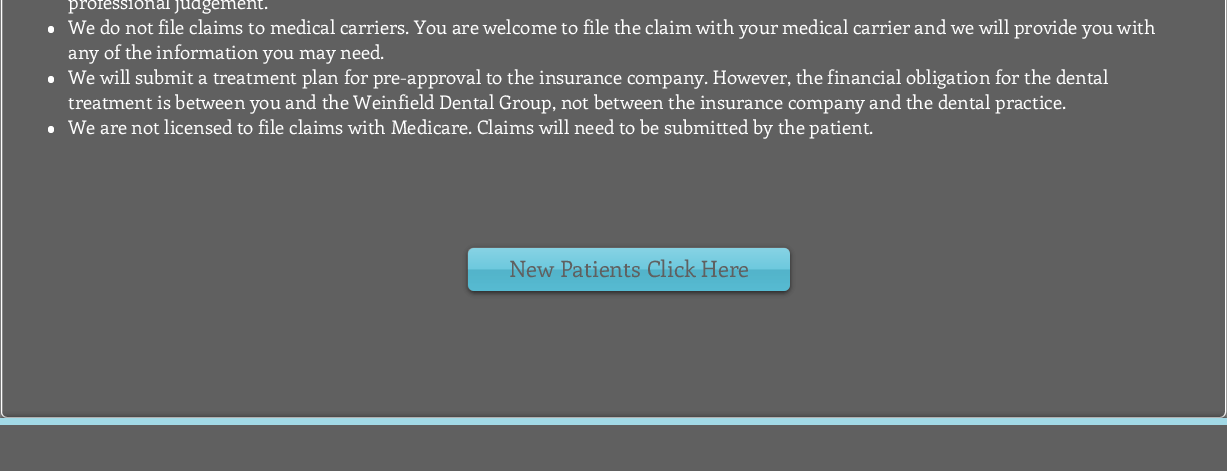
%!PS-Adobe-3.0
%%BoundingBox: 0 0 1227 471
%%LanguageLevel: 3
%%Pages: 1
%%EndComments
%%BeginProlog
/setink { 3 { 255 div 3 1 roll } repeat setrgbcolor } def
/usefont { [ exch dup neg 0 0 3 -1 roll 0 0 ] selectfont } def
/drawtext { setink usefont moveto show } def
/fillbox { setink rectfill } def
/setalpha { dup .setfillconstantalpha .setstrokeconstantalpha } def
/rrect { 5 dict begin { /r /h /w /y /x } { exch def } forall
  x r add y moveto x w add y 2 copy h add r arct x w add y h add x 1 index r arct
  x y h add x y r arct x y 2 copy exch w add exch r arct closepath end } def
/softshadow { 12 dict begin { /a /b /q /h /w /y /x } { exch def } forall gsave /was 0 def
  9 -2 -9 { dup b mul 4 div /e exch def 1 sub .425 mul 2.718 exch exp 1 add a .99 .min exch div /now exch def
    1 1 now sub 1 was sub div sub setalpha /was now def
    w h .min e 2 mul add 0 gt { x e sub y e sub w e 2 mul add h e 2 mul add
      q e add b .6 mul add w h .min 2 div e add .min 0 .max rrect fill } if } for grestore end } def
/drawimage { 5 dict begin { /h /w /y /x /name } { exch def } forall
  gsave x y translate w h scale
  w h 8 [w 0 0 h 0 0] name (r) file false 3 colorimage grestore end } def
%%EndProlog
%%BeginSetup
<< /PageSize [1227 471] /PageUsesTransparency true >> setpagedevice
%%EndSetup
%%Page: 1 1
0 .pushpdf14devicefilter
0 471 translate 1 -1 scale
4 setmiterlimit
0 0 1227 471 168 168 168 fillbox
0 0 0 setink
1 -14 1225 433 6 2.5 0.6 softshadow
96 96 96 setink
1.5 -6.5 1224 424 5.5 rrect gsave fill grestore
255 255 255 setink
stroke
(professional judgement.) 68 9 /Enriqueta-Regular 18.75 255 255 255 drawtext
48 26 6 7 3 rrect fill
(We do not file claims to medical carriers. You are welcome to file the claim with your medical carrier and we will provide you with) 68 34 /Enriqueta-Regular 18.75 255 255 255 drawtext
(any of the information you may need.) 68 59 /Enriqueta-Regular 18.75 255 255 255 drawtext
48 76 6 7 3 rrect fill
(We will submit a treatment plan for pre-approval to the insurance company. However, the financial obligation for the dental) 68 84 /Enriqueta-Regular 18.75 255 255 255 drawtext
(treatment is between you and the Weinfield Dental Group, not between the insurance company and the dental practice.) 68 109 /Enriqueta-Regular 18.75 255 255 255 drawtext
48 126 6 7 3 rrect fill
(We are not licensed to file claims with Medicare. Claims will need to be submitted by the patient.) 68 134 /Enriqueta-Regular 18.75 255 255 255 drawtext
0 0 0 setink
468 249 322 44 6 2.5 0.6 softshadow
89 193 217 setink
468 248 322 43 6 rrect fill
(assets/img1.rgb) 467 247 323 44 drawimage
(New Patients Click Here) 509 277 /Enriqueta-Regular 22.5 96 96 96 drawtext
0 0 0 setink
0 418 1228 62 0 3 0.7 softshadow
0 425 1227 46 96 96 96 fillbox
0 418 1227 7 162 217 230 fillbox
.poppdf14devicefilter showpage
%%EOF
